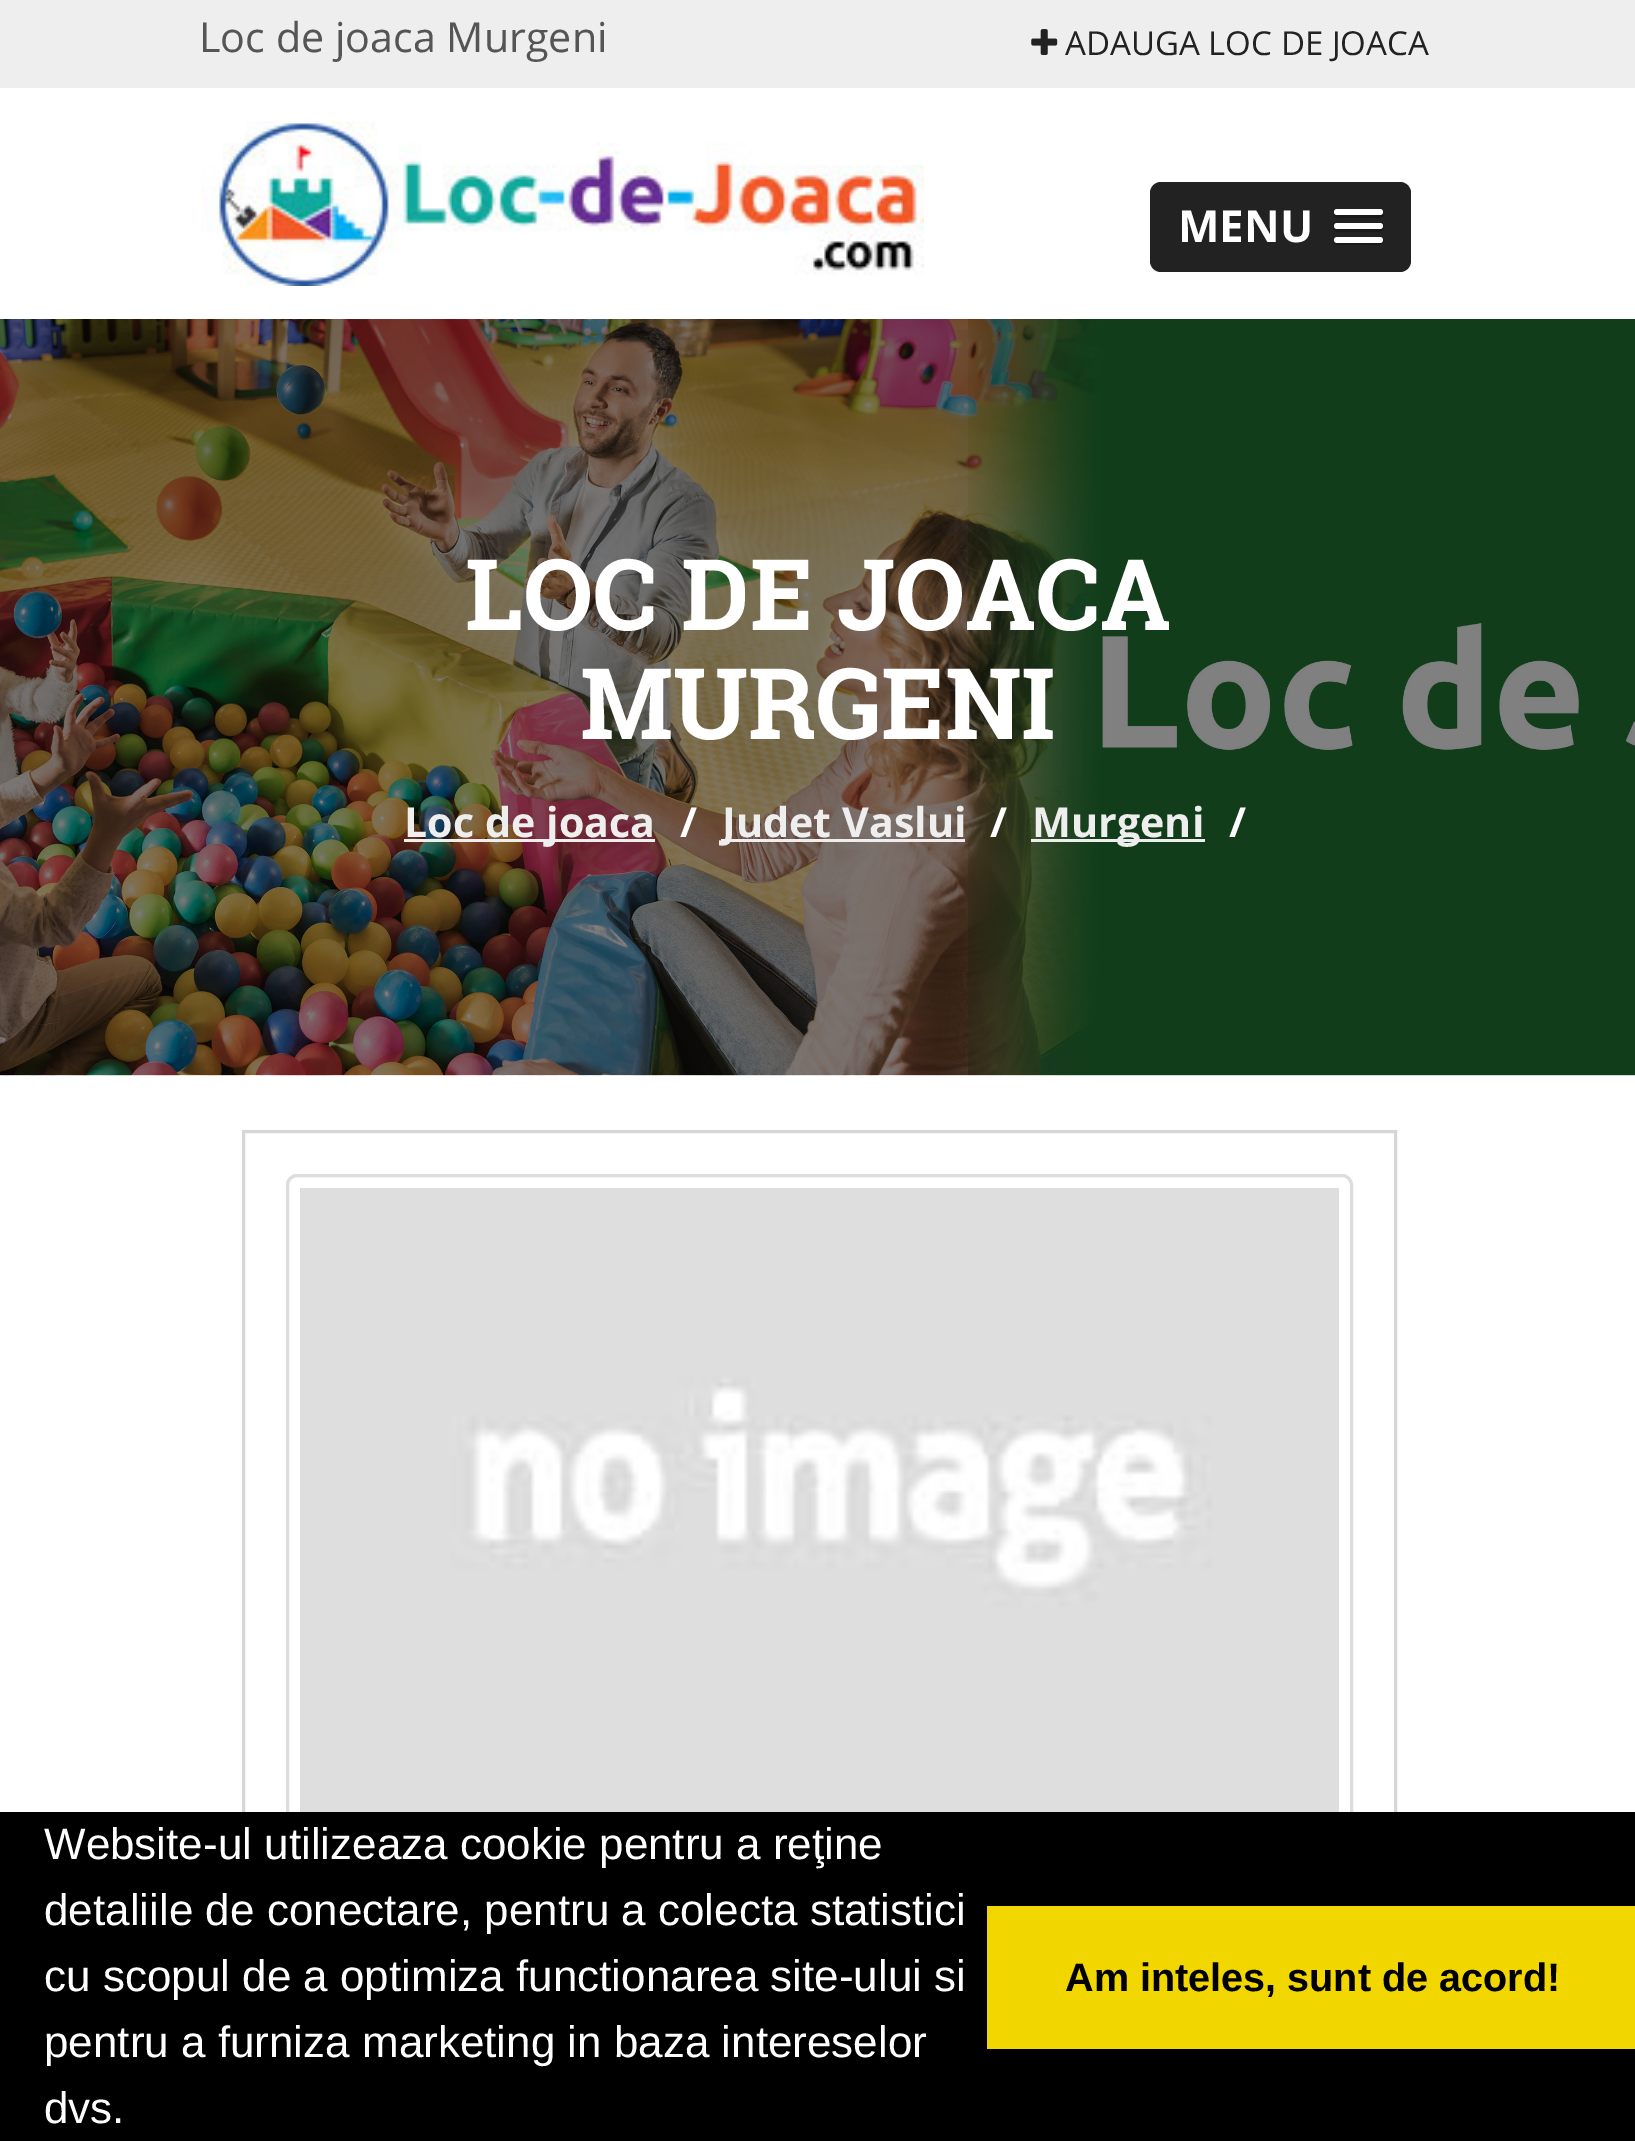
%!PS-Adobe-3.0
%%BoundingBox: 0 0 1635 2141
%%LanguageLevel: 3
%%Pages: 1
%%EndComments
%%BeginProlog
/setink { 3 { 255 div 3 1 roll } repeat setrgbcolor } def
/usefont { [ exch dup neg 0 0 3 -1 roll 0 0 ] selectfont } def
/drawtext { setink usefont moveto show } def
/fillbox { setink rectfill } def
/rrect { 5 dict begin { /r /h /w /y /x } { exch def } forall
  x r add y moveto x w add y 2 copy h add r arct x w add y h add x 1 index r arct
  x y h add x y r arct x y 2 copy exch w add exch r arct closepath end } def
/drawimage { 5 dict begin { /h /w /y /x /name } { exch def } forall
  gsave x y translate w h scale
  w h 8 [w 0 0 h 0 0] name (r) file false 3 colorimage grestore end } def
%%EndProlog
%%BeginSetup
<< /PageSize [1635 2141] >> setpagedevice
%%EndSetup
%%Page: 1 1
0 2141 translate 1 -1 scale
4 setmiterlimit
0 0 1635 2141 255 255 255 fillbox
0 0 1635 88 238 238 238 fillbox
(Loc de joaca Murgeni) 199 52 /OpenSans-Regular 41.25 85 85 85 drawtext
(assets/img1.rgb) 1031 29 27 26 drawimage
(ADAUGA LOC DE JOACA) 1065 55 /OpenSans-Regular 33 34 34 34 drawtext
(assets/img2.rgb) 201 121 723 165 drawimage
1150 182 261 90 11 rrect fill
(MENU) 1178 242 /OpenSans-Bold 44 255 255 255 drawtext
26 26 26 setink
1334 214 moveto 1331 219 1343 218 1344 218 curveto 1373 218 lineto 1374 218 1386 219 1383 214 curveto 1381 214 lineto 1336 214 lineto closepath fill
255 255 255 setink
1334 209 49 6 3 rrect fill
26 26 26 setink
1334 227 moveto 1331 233 1343 232 1344 232 curveto 1373 232 lineto 1374 232 1386 233 1383 227 curveto 1381 228 lineto 1336 228 lineto closepath fill
255 255 255 setink
1334 223 49 6 3 rrect fill
26 26 26 setink
1334 241 moveto 1332 246 1343 245 1344 245 curveto 1373 245 lineto 1374 245 1385 246 1383 241 curveto 1381 242 lineto 1336 242 lineto closepath fill
255 255 255 setink
1334 237 49 6 3 rrect fill
(assets/img3.rgb) 0 319 1635 757 drawimage
(LOC DE JOACA) 465 630 /RobotoSlab-Bold 99 255 255 255 drawtext
(MURGENI) 580 739 /RobotoSlab-Bold 99 255 255 255 drawtext
404 839 251 3 238 238 238 fillbox
(Loc de joaca) 404 837 /OpenSans-Bold 41.25 238 238 238 drawtext
(/) 680 837 /OpenSans-Bold 41.25 255 255 255 drawtext
721 839 244 3 238 238 238 fillbox
(Judet Vaslui) 722 837 /OpenSans-Bold 41.25 238 238 238 drawtext
(/) 990 837 /OpenSans-Bold 41.25 255 255 255 drawtext
1031 839 174 3 238 238 238 fillbox
(Murgeni) 1032 837 /OpenSans-Bold 41.25 238 238 238 drawtext
(/) 1229 837 /OpenSans-Bold 41.25 255 255 255 drawtext
214 214 214 setink
3 setlinewidth
243.5 1131.5 1152 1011 rectstroke
221 221 221 setink
287.5 1175.5 1064 666 9.5 rrect stroke
(assets/img4.rgb) 300 1188 1039 624 drawimage
0 1812 1635 329 0 0 0 fillbox
(Website-ul utilizeaza cookie pentru a reţine) 44 1859 /LiberationSans-Regular 44 255 255 255 drawtext
(detaliile de conectare, pentru a colecta statistici) 44 1925 /LiberationSans-Regular 44 255 255 255 drawtext
(cu scopul de a optimiza functionarea site-ului si) 44 1991 /LiberationSans-Regular 44 255 255 255 drawtext
(pentru a furniza marketing in baza intereselor) 44 2057 /LiberationSans-Regular 44 255 255 255 drawtext
(dvs.) 44 2123 /LiberationSans-Regular 44 255 255 255 drawtext
987 1906 648 143 241 214 0 fillbox
(Am inteles, sunt de acord!) 1065 1991 /LiberationSans-Bold 39.6 0 0 0 drawtext
showpage
%%EOF
